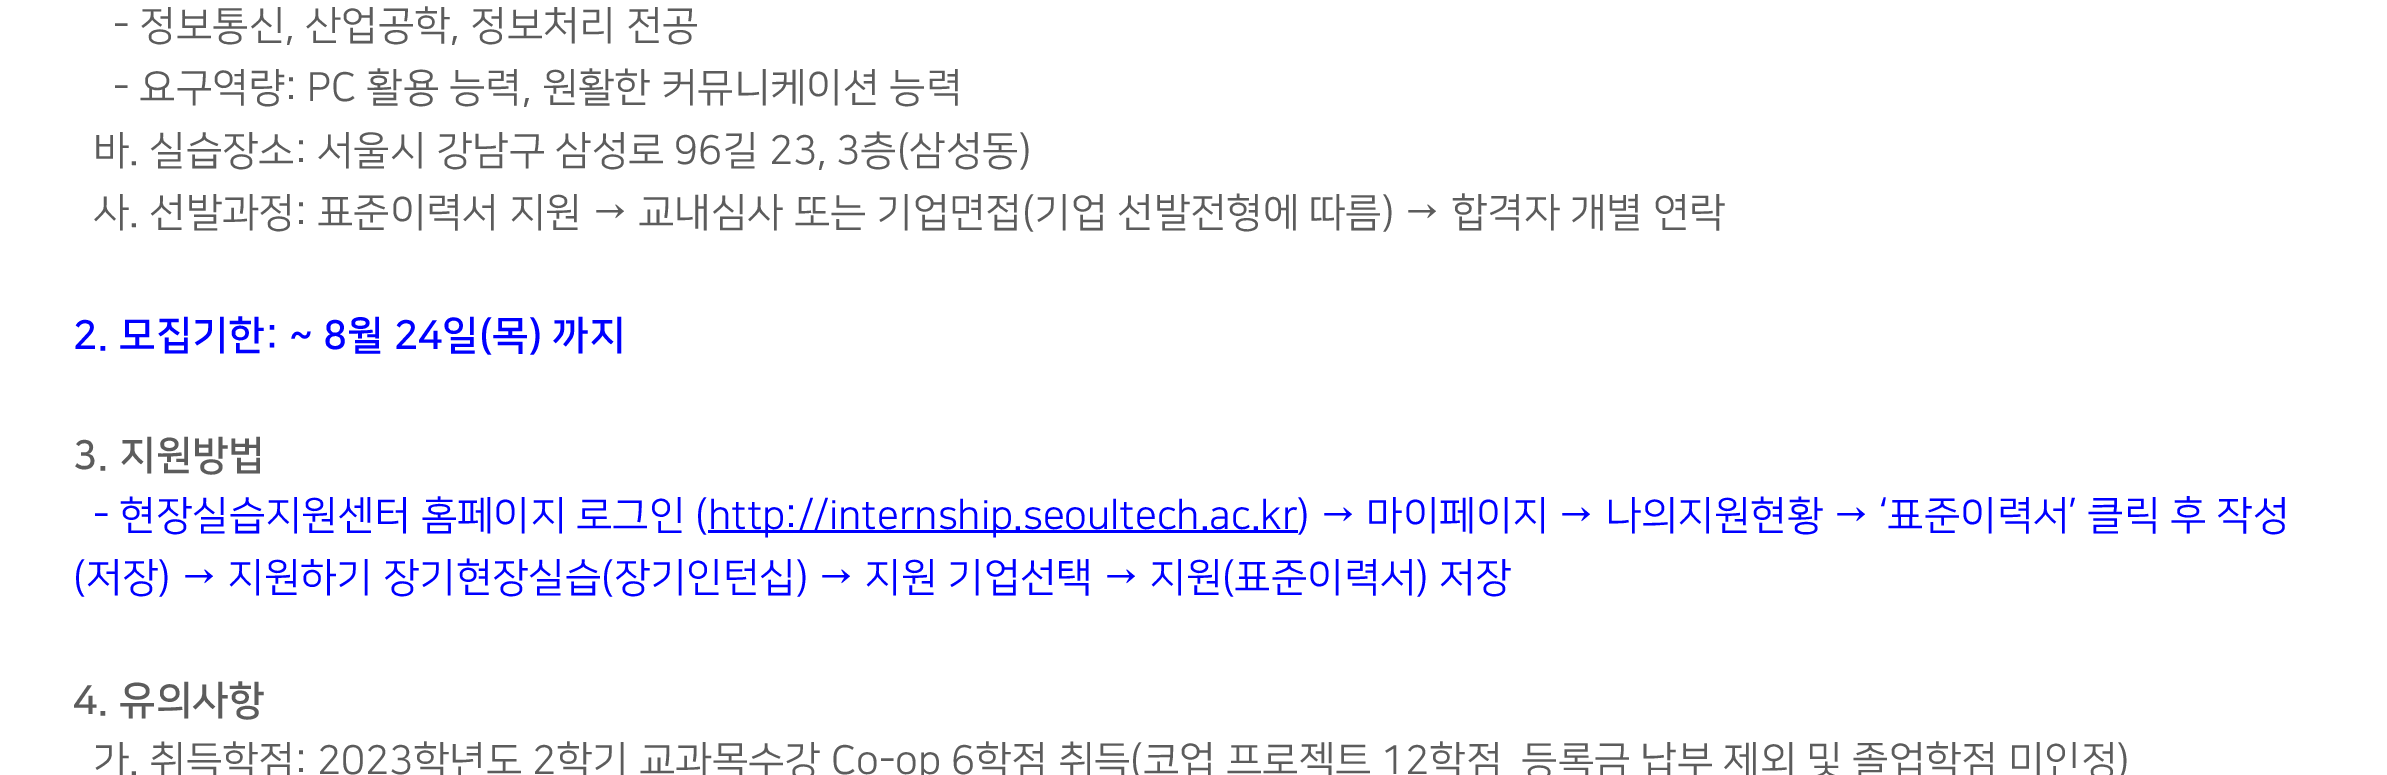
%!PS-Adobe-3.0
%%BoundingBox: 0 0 2387 775
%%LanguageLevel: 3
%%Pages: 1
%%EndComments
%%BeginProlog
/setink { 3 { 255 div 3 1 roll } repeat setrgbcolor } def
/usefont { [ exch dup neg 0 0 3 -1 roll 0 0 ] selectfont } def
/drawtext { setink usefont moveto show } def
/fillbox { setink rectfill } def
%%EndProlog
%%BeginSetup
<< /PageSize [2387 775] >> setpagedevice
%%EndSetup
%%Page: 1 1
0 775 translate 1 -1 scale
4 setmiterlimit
0 0 2387 775 255 255 255 fillbox
(- 정보통신, 산업공학, 정보처리 전공) 113 38 /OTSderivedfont-Regular 40 92 92 92 drawtext
(- 요구역량: PC 활용 능력, 원활한 커뮤니케이션 능력) 113 100 /OTSderivedfont-Regular 40 92 92 92 drawtext
(바. 실습장소: 서울시 강남구 삼성로 96길 23, 3층\(삼성동\)) 93 163 /OTSderivedfont-Regular 40 92 92 92 drawtext
(사. 선발과정: 표준이력서 지원 → 교내심사 또는 기업면접\(기업 선발전형에 따름\) → 합격자 개별 연락) 93 225 /OTSderivedfont-Regular 40 92 92 92 drawtext
(2. 모집기한: ~ 8월 24일\(목\) 까지) 73 348 /OTSderivedfont-Bold 40 0 0 255 drawtext
(3. 지원방법) 73 468 /OTSderivedfont-Bold 40 92 92 92 drawtext
(- 현장실습지원센터 홈페이지 로그인 \() 93 528 /OTSderivedfont-Regular 40 0 0 255 drawtext
708 530 590 3 0 0 255 fillbox
(http://internship.seoultech.ac.kr\) → 마이페이지 → 나의지원현황 → ‘표준이력서’ 클릭 후 작성) 708 528 /OTSderivedfont-Regular 40 0 0 255 drawtext
(\(저장\) → 지원하기 장기현장실습\(장기인턴십\) → 지원 기업선택 → 지원\(표준이력서\) 저장) 73 590 /OTSderivedfont-Regular 40 0 0 255 drawtext
(4. 유의사항) 73 713 /OTSderivedfont-Bold 40 92 92 92 drawtext
(가. 취득학점: 2023학년도 2학기 교과목수강 Co-op 6학점 취득\(코업 프로젝트 12학점_등록금 납부 제외 및 졸업학점 미인정\)) 93 773 /OTSderivedfont-Regular 40 92 92 92 drawtext
showpage
%%EOF
